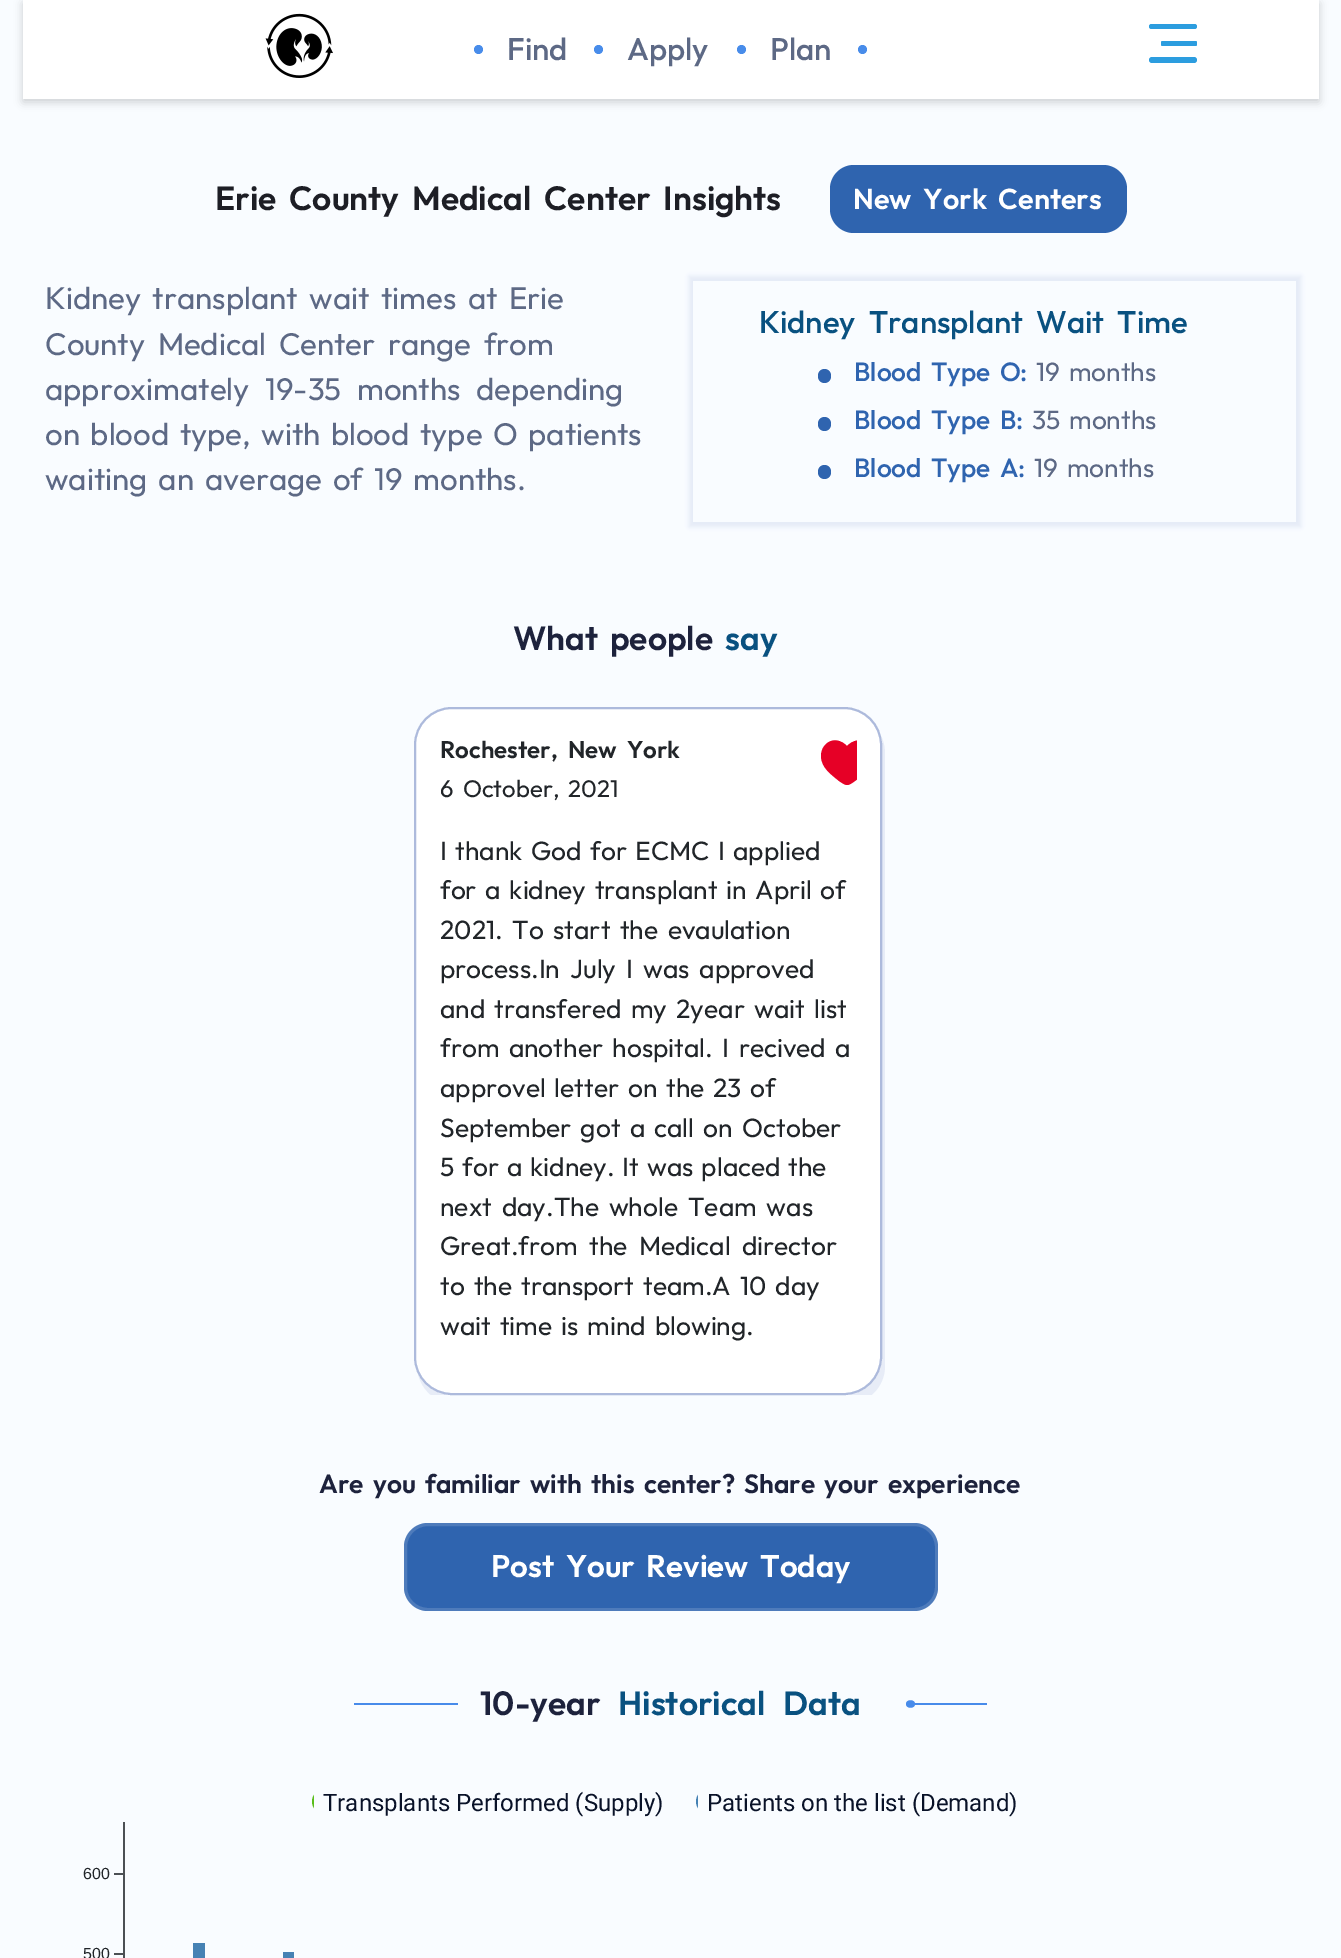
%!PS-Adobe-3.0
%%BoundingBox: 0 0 1341 1958
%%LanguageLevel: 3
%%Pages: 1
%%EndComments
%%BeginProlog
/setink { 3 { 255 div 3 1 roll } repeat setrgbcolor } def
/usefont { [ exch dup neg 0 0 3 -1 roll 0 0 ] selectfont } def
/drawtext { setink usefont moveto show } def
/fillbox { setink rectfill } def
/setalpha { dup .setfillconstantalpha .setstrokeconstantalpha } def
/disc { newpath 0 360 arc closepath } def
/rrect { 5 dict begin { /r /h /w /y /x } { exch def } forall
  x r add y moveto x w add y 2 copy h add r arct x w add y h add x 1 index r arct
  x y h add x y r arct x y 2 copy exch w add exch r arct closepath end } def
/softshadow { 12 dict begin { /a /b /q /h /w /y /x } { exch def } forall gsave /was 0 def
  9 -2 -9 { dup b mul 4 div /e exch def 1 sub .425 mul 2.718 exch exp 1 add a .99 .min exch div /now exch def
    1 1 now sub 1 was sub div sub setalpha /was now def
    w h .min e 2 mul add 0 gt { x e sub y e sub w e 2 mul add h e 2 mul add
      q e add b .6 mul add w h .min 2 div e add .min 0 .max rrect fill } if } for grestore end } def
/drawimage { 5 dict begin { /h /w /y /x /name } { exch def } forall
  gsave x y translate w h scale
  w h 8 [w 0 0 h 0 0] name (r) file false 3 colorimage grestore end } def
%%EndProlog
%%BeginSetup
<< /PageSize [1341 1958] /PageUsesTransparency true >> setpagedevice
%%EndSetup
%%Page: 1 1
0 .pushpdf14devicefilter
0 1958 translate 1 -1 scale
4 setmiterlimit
0 0 1341 1958 249 252 255 fillbox
0 0 0 setink
23 3 1296 99 0 4.5 0.18 softshadow
23 0 1296 99 255 255 255 fillbox
(assets/img1.rgb) 265 13 68 65 drawimage
72 140 234 setink
478.5 49.5 4.5 disc fill
(Find) 507 60 /Outfit-Medium 31.25 93 105 133 drawtext
72 140 234 setink
598.5 49.5 4.5 disc fill
(Apply) 627 60 /Outfit-Medium 31.25 93 105 133 drawtext
72 140 234 setink
741.5 49.5 4.5 disc fill
(Plan) 770 60 /Outfit-Medium 31.25 93 105 133 drawtext
72 140 234 setink
862.5 49.5 4.5 disc fill
44 157 223 setink
1149 24 48 5 2.5 rrect fill
1161 41 36 5 1.5 rrect fill
1149 57 48 6 3 rrect fill
/Outfit-SemiBold 33.6 usefont
29 30 37 setink
215 210 moveto 6.5 0 32 (Erie County Medical Center Insights) widthshow
47 100 175 setink
830 165 297 68 24 rrect fill
/Outfit-SemiBold 28.75 usefont
255 255 255 setink
853 209 moveto 6 0 32 (New York Centers) widthshow
/Outfit-Regular 31.25 usefont
93 105 133 setink
45 309 moveto 5 0 32 (Kidney transplant wait times at Erie) widthshow
45 355 moveto 6 0 32 (County Medical Center range from) widthshow
45 400 moveto 9 0 32 (approximately 19-35 months depending) widthshow
45 445 moveto 4 0 32 (on blood type, with blood type O patients) widthshow
45 490 moveto 4.5 0 32 (waiting an average of 19 months.) widthshow
gsave
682 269 moveto 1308 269 lineto 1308 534 lineto 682 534 lineto closepath 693 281 moveto 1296 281 lineto 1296 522 lineto 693 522 lineto closepath eoclip newpath
19 57 154 setink
689 276 612 251 0 2 0.08 softshadow
grestore
/Outfit-Medium 31.25 usefont
9 81 128 setink
759 333 moveto 7 0 32 (Kidney Transplant Wait Time) widthshow
47 100 175 setink
818 369 13 14 6.5 rrect fill
/Outfit-Medium 26.4 usefont
854 381 moveto 4 0 32 (Blood Type O:) widthshow
/Outfit-Regular 26.4 usefont
93 105 133 setink
1036 381 moveto 3 0 32 (19 months) widthshow
47 100 175 setink
818 417 13 14 6.5 rrect fill
/Outfit-Medium 26.4 usefont
854 429 moveto 4 0 32 (Blood Type B:) widthshow
/Outfit-Regular 26.4 usefont
93 105 133 setink
1032 429 moveto 3 0 32 (35 months) widthshow
47 100 175 setink
818 465 13 14 6.5 rrect fill
/Outfit-Medium 26.4 usefont
854 477 moveto 4 0 32 (Blood Type A:) widthshow
/Outfit-Regular 26.4 usefont
93 105 133 setink
1034 477 moveto 3 0 32 (19 months) widthshow
/Outfit-SemiBold 33.6 usefont
29 34 60 setink
513 650 moveto 5 0 32 (What people) widthshow
(say) 725 650 /Outfit-SemiBold 33.6 9 81 128 drawtext
gsave
108 707 1080 688 rectclip
231 236 247 setink
418 1374 moveto 422 1391 437 1404 455 1404 curveto 847 1404 lineto 868 1404 885 1387 885 1366 curveto 885 754 lineto 885 748 884 743 882 738 curveto 882 744 lineto 882 1358 lineto 882 1378 865 1395 844 1395 curveto 452 1395 lineto 437 1395 424 1386 418 1374 curveto closepath fill
grestore
255 255 255 setink
414 707 468 688 38 rrect fill
0.35 setalpha
19 57 154 setink
2 setlinewidth
415 708 466 686 37 rrect stroke
/Outfit-SemiBold 24 usefont
1 setalpha
33 37 41 setink
440 758 moveto 5.5 0 32 (Rochester, New York) widthshow
/Outfit-Regular 24 usefont
440 797 moveto 4 0 32 (6 October, 2021) widthshow
gsave
794 732 63 63 rectclip
230 0 38 setink
821 756 moveto 821 768 832 775 839 781 curveto 842 783 845 785 847 785 curveto 850 785 852 783 855 781 curveto 863 775 873 768 873 756 curveto 873 743 859 734 847 746 curveto 835 734 821 743 821 756 curveto closepath fill
grestore
/Outfit-Regular 26.4 usefont
440 860 moveto 3 0 32 (I thank God for ECMC I applied) widthshow
440 899 moveto 3.25 0 32 (for a kidney transplant in April of) widthshow
440 939 moveto 4 0 32 (2021. To start the evaulation) widthshow
440 978 moveto 4.5 0 32 (process.In July I was approved) widthshow
440 1018 moveto 3.75 0 32 (and transfered my 2year wait list) widthshow
440 1057 moveto 4 0 32 (from another hospital. I recived a) widthshow
440 1097 moveto 3.25 0 32 (approvel letter on the 23 of) widthshow
440 1137 moveto 3.75 0 32 (September got a call on October) widthshow
440 1176 moveto 2.5 0 32 (5 for a kidney. It was placed the) widthshow
440 1216 moveto 4.5 0 32 (next day.The whole Team was) widthshow
440 1255 moveto 6 0 32 (Great.from the Medical director) widthshow
440 1295 moveto 3.5 0 32 (to the transport team.A 10 day) widthshow
440 1335 moveto 3.5 0 32 (wait time is mind blowing.) widthshow
/Outfit-SemiBold 26.4 usefont
29 34 60 setink
319 1493 moveto 4 0 32 (Are you familiar with this center? Share your experience) widthshow
47 100 175 setink
404 1523 534 88 24 rrect fill
0.15 setalpha
255 255 255 setink
3 setlinewidth
405.5 1524.5 531 85 22.5 rrect stroke
/Outfit-SemiBold 31.25 usefont
1 setalpha
491 1577 moveto 5.5 0 32 (Post Your Review Today) widthshow
gsave
354 1700 104 9 rectclip
72 139 234 setink
471 1704 moveto 471 1699 480 1699 480 1704 curveto 480 1709 471 1709 471 1704 curveto closepath 312 1703 moveto 476 1703 lineto 476 1705 lineto 312 1705 lineto closepath fill
grestore
(10-year) 480 1715 /Outfit-SemiBold 33.6 29 34 60 drawtext
9 81 128 setink
618 1715 moveto 11 0 32 (Historical Data) widthshow
gsave
884 1700 103 9 rectclip
72 139 234 setink
915 1704 moveto 915 1699 906 1699 906 1704 curveto 906 1709 915 1709 915 1704 curveto closepath 1074 1703 moveto 910 1703 lineto 910 1705 lineto 1074 1705 lineto closepath fill
grestore
gsave
290 1790 24 24 rectclip
90 190 28 setink
324 1801.5 12 disc fill
grestore
(Transplants Performed \(Supply\)) 323 1811 /Roboto-Regular 24 9 18 40 drawtext
gsave
674 1790 24 24 rectclip
70 130 180 setink
708 1801.5 12 disc fill
grestore
(Patients on the list \(Demand\)) 707 1811 /Roboto-Regular 24 9 18 40 drawtext
(assets/img2.rgb) 114 1822 180 136 drawimage
(600) 83 1879 /LiberationSans-Regular 16 33 37 41 drawtext
(500) 83 1959 /LiberationSans-Regular 16 33 37 41 drawtext
.poppdf14devicefilter showpage
%%EOF
